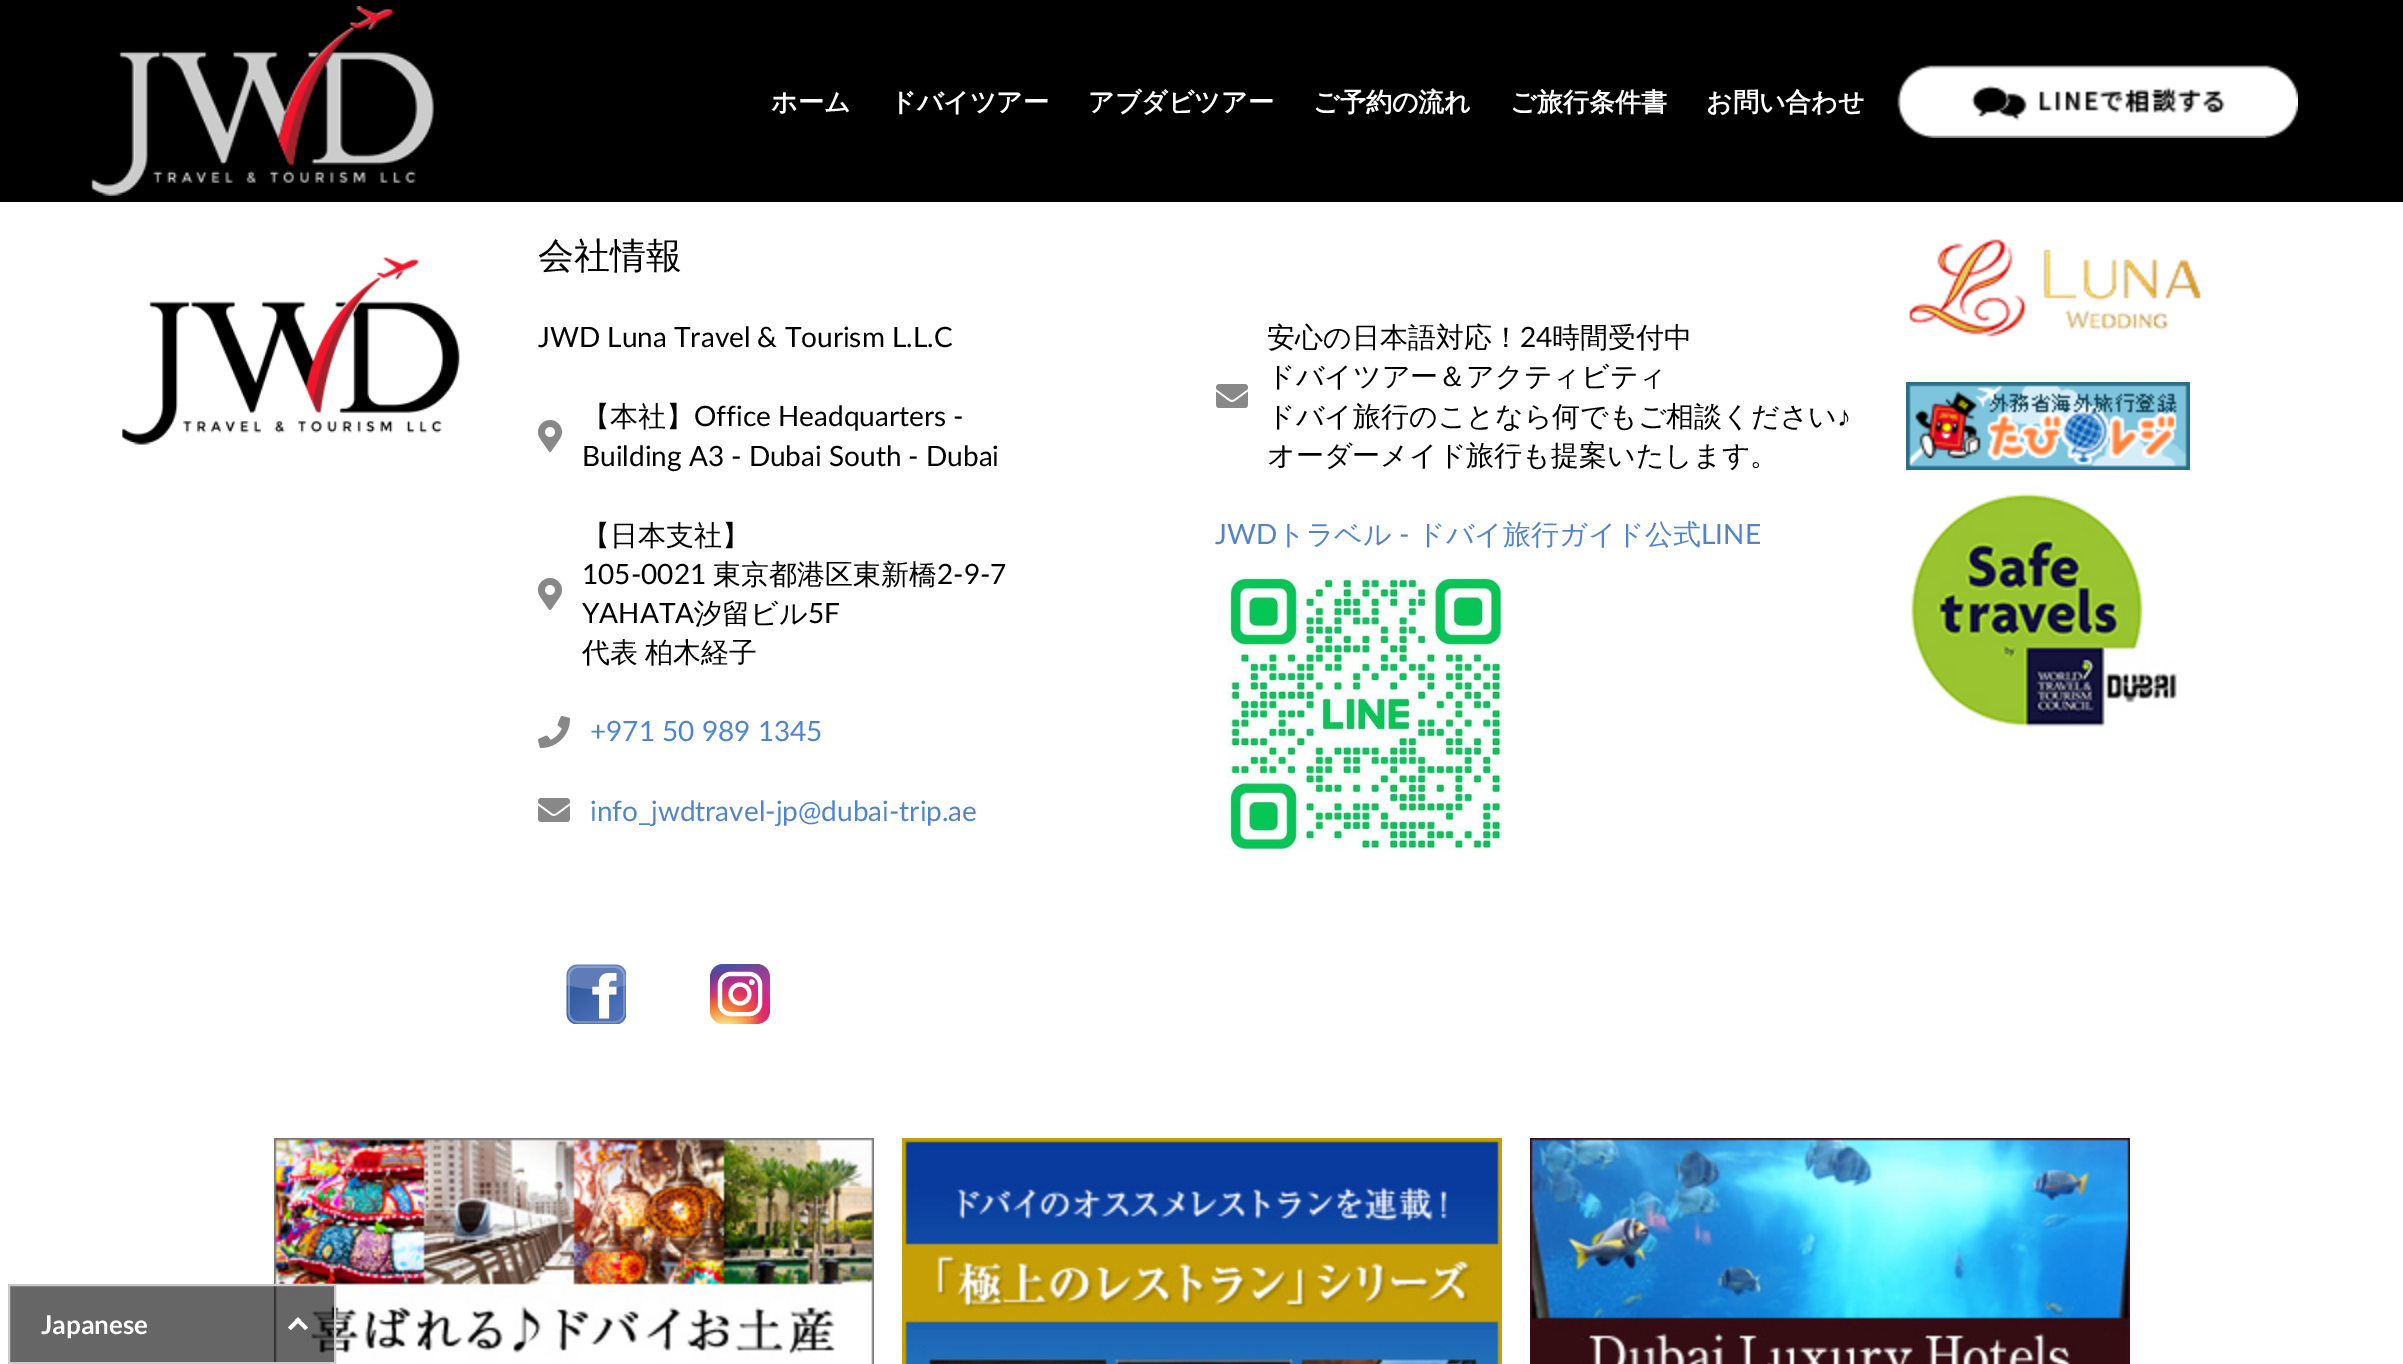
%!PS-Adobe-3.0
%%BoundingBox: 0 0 2403 1364
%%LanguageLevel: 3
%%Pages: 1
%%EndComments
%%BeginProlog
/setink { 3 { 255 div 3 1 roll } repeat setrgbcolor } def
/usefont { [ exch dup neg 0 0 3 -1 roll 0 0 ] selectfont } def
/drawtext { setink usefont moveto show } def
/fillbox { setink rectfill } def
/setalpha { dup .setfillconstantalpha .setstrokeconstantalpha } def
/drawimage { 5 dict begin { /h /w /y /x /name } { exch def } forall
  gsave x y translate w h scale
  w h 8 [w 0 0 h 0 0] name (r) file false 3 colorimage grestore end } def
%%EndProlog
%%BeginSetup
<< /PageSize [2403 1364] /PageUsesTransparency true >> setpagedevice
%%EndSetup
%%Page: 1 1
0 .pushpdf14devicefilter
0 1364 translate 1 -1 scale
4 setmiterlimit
0 0 2403 1364 255 255 255 fillbox
0 0 2403 202 0 0 0 fillbox
(assets/img1.rgb) 91 6 343 190 drawimage
(ホーム) 771 111 /WenQuanYiZenHei-Bold 26 255 255 255 drawtext
(ドバイツアー) 890 111 /WenQuanYiZenHei-Bold 26 255 255 255 drawtext
(アブダビツアー) 1088 111 /WenQuanYiZenHei-Bold 26 255 255 255 drawtext
(ご予約の流れ) 1313 111 /WenQuanYiZenHei-Bold 26 255 255 255 drawtext
(ご旅行条件書) 1510 111 /WenQuanYiZenHei-Bold 26 255 255 255 drawtext
(お問い合わせ) 1706 111 /WenQuanYiZenHei-Bold 26 255 255 255 drawtext
(assets/img2.rgb) 1897 65 401 73 drawimage
(assets/img13.rgb) 274 1138 600 226 drawimage
0.6 setalpha
0 0 0 setink
9 1285 moveto 335 1285 lineto 335 1363 lineto 9 1363 lineto closepath fill
1 setalpha
202 202 202 setink
2 setlinewidth
9 1285 moveto 335 1285 lineto 335 1363 lineto 9 1363 lineto closepath stroke
(Japanese) 41 1334 /Lato-Bold 26 255 255 255 drawtext
288 1327.5 moveto 298 1317.5 lineto 301 1320 lineto 291 1330 lineto closepath fill
295 1320 moveto 298 1317.5 lineto 308 1327.5 lineto 305 1330 lineto closepath fill
(assets/img3.rgb) 122 257 338 188 drawimage
(会社情報) 538 268 /WenQuanYiZenHei-Medium 36 0 0 0 drawtext
(JWD Luna Travel & Tourism L.L.C) 538 347 /Lato-Regular 28 0 0 0 drawtext
(assets/img4.rgb) 538 420 24 32 drawimage
(【本社】) 582 426 /WenQuanYiZenHei-Medium 28 0 0 0 drawtext
(Office Headquarters -) 694 426 /Lato-Regular 28 0 0 0 drawtext
(Building A3 - Dubai South - Dubai) 582 466 /Lato-Regular 28 0 0 0 drawtext
(【日本支社】) 582 545 /WenQuanYiZenHei-Medium 28 0 0 0 drawtext
(105-0021) 582 584 /Lato-Regular 28 0 0 0 drawtext
(東京都港区東新橋) 713 584 /WenQuanYiZenHei-Medium 28 0 0 0 drawtext
(2-9-7) 937 584 /Lato-Regular 28 0 0 0 drawtext
(assets/img4.rgb) 538 578 24 32 drawimage
(YAHATA) 582 623 /Lato-Regular 28 0 0 0 drawtext
(汐留ビル) 694 623 /WenQuanYiZenHei-Medium 28 0 0 0 drawtext
(5F) 808 623 /Lato-Regular 28 0 0 0 drawtext
/WenQuanYiZenHei-Medium 28 usefont
582 662 moveto -1 0 32 (代表 柏木経子) widthshow
(assets/img5.rgb) 538 716 32 32 drawimage
(+971 50 989 1345) 590 741 /Lato-Regular 28 84 132 200 drawtext
(assets/img6.rgb) 538 798 32 24 drawimage
(info_jwdtravel-jp@dubai-trip.ae) 590 821 /Lato-Regular 28 84 132 200 drawtext
(安心の日本語対応！) 1267 347 /WenQuanYiZenHei-Medium 28 0 0 0 drawtext
(24) 1520 347 /Lato-Regular 28 0 0 0 drawtext
(時間受付中) 1552 347 /WenQuanYiZenHei-Medium 28 0 0 0 drawtext
(ドバイツアー＆アクティビティ) 1267 386 /WenQuanYiZenHei-Medium 28 0 0 0 drawtext
(assets/img6.rgb) 1216 384 32 24 drawimage
(ドバイ旅行のことなら何でもご相談ください) 1267 426 /WenQuanYiZenHei-Medium 28 0 0 0 drawtext
(♪) 1837 426 /LiberationSans-Regular 28 0 0 0 drawtext
(オーダーメイド旅行も提案いたします。) 1267 465 /WenQuanYiZenHei-Medium 28 0 0 0 drawtext
(JWD) 1215 544 /Lato-Regular 28 84 132 200 drawtext
(トラベル) 1277 544 /WenQuanYiZenHei-Medium 28 84 132 200 drawtext
(-) 1399 544 /Lato-Regular 28 84 132 200 drawtext
(ドバイ旅行ガイド公式) 1417 544 /WenQuanYiZenHei-Medium 28 84 132 200 drawtext
(LINE) 1701 544 /Lato-Regular 28 84 132 200 drawtext
(assets/img7.rgb) 1227 575 276 276 drawimage
(assets/img8.rgb) 566 964 60 60 drawimage
(assets/img9.rgb) 710 964 60 60 drawimage
(assets/img10.rgb) 1909 239 292 98 drawimage
(assets/img11.rgb) 1906 382 284 88 drawimage
(assets/img12.rgb) 1911 493 266 234 drawimage
(assets/img14.rgb) 902 1138 600 226 drawimage
(assets/img15.rgb) 1530 1138 600 226 drawimage
.poppdf14devicefilter showpage
%%EOF
